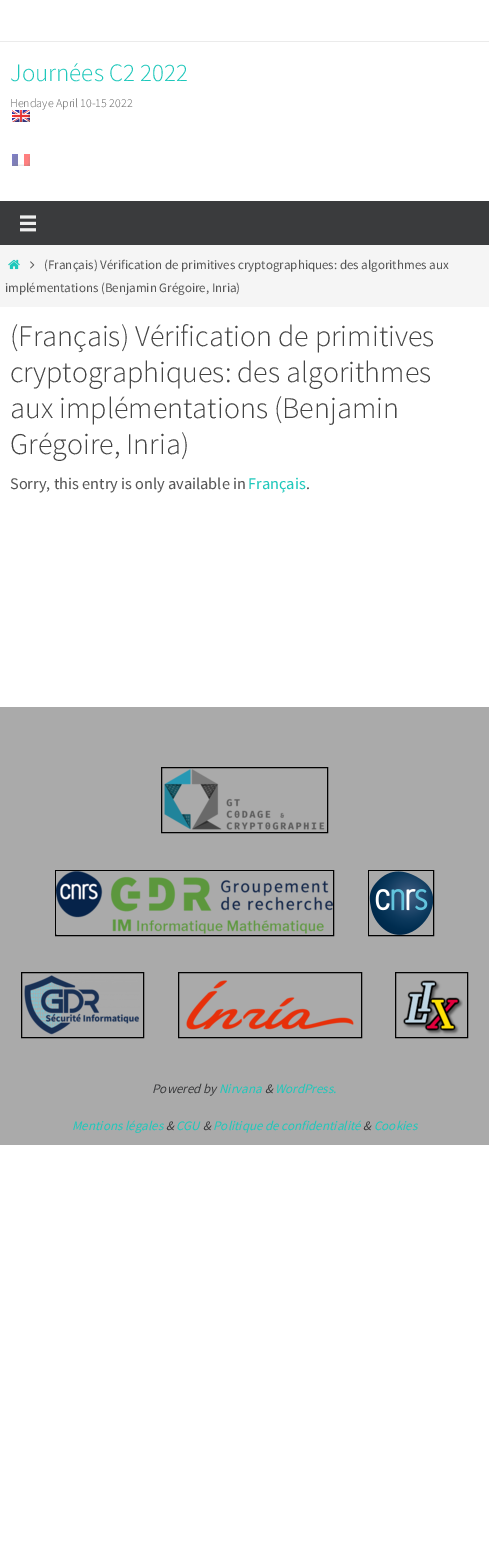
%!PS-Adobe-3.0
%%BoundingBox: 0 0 489 1568
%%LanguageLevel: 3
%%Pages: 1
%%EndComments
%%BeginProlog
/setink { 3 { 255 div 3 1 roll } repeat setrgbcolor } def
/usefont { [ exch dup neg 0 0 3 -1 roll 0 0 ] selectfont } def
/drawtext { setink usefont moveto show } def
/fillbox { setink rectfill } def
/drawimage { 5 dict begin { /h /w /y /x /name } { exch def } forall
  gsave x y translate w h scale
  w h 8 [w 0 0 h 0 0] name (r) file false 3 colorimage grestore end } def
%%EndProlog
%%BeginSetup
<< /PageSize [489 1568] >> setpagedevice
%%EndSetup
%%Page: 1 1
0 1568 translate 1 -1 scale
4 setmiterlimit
0 0 489 1568 255 255 255 fillbox
0 41 489 1 235 235 235 fillbox
(Journées C2 2022) 10 81 /SourceSansPro-Light 25 30 200 187 drawtext
(Hendaye April 10-15 2022) 10 107 /SourceSansPro-Light 12 102 102 102 drawtext
(assets/img1.rgb) 12 110 18 12 drawimage
(assets/img2.rgb) 12 154 18 12 drawimage
0 201 489 44 58 59 61 fillbox
(assets/img3.rgb) 20 215 16 17 drawimage
0 245 489 62 245 245 245 fillbox
(assets/img4.rgb) 8 259 12 11 drawimage
(assets/img5.rgb) 30 261 5 8 drawimage
(\(Français\) Vérification de primitives cryptographiques: des algorithmes aux) 44 269 /SourceSansPro-Regular 12.95 85 85 85 drawtext
(implémentations \(Benjamin Grégoire, Inria\)) 5 292 /SourceSansPro-Regular 12.95 85 85 85 drawtext
(\(Français\) Vérification de primitives) 10 346 /SourceSansPro-Light 30 68 68 68 drawtext
(cryptographiques: des algorithmes) 10 382 /SourceSansPro-Light 30 68 68 68 drawtext
(aux implémentations \(Benjamin) 10 418 /SourceSansPro-Light 30 68 68 68 drawtext
(Grégoire, Inria\)) 10 454 /SourceSansPro-Light 30 68 68 68 drawtext
(Sorry, this entry is only available in) 10 489 /SourceSansPro-Regular 16.25 85 85 85 drawtext
(Français) 248 489 /SourceSansPro-Regular 16.25 30 200 187 drawtext
(.) 306 489 /SourceSansPro-Regular 16.25 85 85 85 drawtext
0 707 489 438 170 170 170 fillbox
0 0 0 setink
161.5 767.5 166 65 rectstroke
(assets/img6.rgb) 164 769 161 61 drawimage
55.5 870.5 278 65 rectstroke
368.5 870.5 65 65 rectstroke
(assets/img7.rgb) 56 871 277 63 drawimage
(assets/img8.rgb) 369 871 64 64 drawimage
21.5 972.5 122 65 rectstroke
178.5 972.5 183 65 rectstroke
395.5 972.5 72 65 rectstroke
(assets/img9.rgb) 24 975 116 60 drawimage
(assets/img10.rgb) 186 980 168 50 drawimage
(assets/img11.rgb) 403 980 60 55 drawimage
(Powered by) 152 1093 /SourceSansPro-Italic 13 58 59 61 drawtext
(Nirvana) 219 1093 /SourceSansPro-Italic 13 30 200 187 drawtext
(&) 265 1093 /SourceSansPro-Italic 13 58 59 61 drawtext
(WordPress.) 275 1093 /SourceSansPro-Italic 13 30 200 187 drawtext
(Mentions légales) 72 1130 /SourceSansPro-Italic 13 30 200 187 drawtext
(&) 166 1130 /SourceSansPro-Italic 13 58 59 61 drawtext
(CGU) 176 1130 /SourceSansPro-Italic 13 30 200 187 drawtext
(&) 203 1130 /SourceSansPro-Italic 13 58 59 61 drawtext
(Politique de confidentialité) 213 1130 /SourceSansPro-Italic 13 30 200 187 drawtext
(&) 363 1130 /SourceSansPro-Italic 13 58 59 61 drawtext
(Cookies) 374 1130 /SourceSansPro-Italic 13 30 200 187 drawtext
showpage
%%EOF
